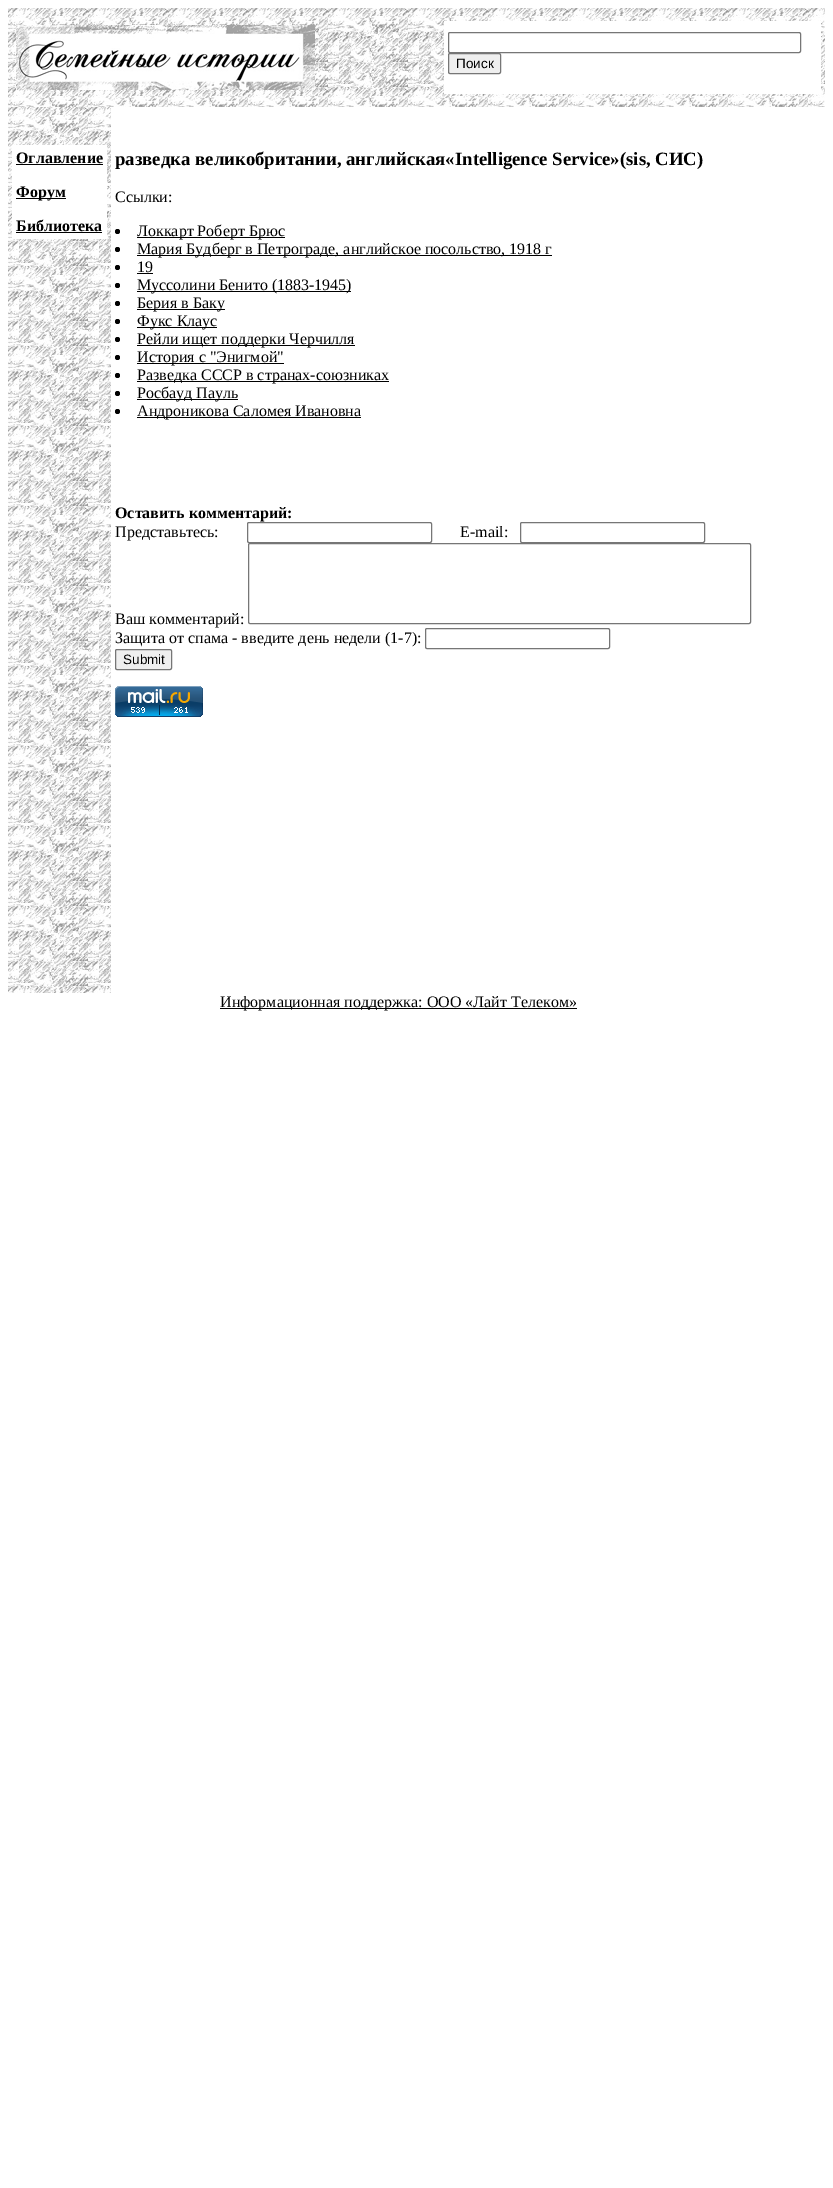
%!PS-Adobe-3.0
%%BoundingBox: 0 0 833 2188
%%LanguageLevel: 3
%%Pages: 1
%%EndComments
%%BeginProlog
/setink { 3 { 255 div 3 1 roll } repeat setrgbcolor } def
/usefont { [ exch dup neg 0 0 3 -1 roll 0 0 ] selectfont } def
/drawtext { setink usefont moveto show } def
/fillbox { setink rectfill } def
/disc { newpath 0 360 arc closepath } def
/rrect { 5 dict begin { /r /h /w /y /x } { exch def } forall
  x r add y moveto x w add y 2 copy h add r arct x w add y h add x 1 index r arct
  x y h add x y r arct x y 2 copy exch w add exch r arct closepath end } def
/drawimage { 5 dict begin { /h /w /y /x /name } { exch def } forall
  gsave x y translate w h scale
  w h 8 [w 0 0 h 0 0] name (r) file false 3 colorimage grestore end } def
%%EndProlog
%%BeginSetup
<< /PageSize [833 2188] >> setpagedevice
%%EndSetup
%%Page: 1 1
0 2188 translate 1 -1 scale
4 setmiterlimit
0 0 833 2188 255 255 255 fillbox
(assets/img1.rgb) 8 8 817 99 drawimage
(assets/img2.rgb) 16 25 299 65 drawimage
444 21 377 73 255 255 255 fillbox
118 118 118 setink
448.5 32.5 352 20 1.5 rrect stroke
239 239 239 setink
448.5 53.5 52 20 1.5 rrect gsave fill grestore
118 118 118 setink
stroke
(Поиск) 456 68 /LiberationSans-Regular 13.5 0 0 0 drawtext
(assets/img3.rgb) 8 107 103 886 drawimage
12 145 95 94 255 255 255 fillbox
(Оглавление) 16 163 /LiberationSerif-Bold 16 0 0 0 drawtext
16 164 87 1 0 0 0 fillbox
16 198 50 1 0 0 0 fillbox
(Форум) 16 197 /LiberationSerif-Bold 16 0 0 0 drawtext
(Библиотека) 16 231 /LiberationSerif-Bold 16 0 0 0 drawtext
16 232 86 1 0 0 0 fillbox
(разведка великобритании, английская«Intelligence Service»\(sis, СИС\)) 115 165 /LiberationSerif-Bold 18.75 0 0 0 drawtext
(Ссылки:) 115 202 /LiberationSerif-Regular 16 0 0 0 drawtext
117.5 231.5 2.5 disc fill
137 237 148 1 0 0 0 fillbox
(Локкарт Роберт Брюс) 137 236 /LiberationSerif-Regular 16 0 0 0 drawtext
117.5 249.5 2.5 disc fill
137 255 415 1 0 0 0 fillbox
(Мария Будберг в Петрограде, английское посольство, 1918 г) 137 254 /LiberationSerif-Regular 16 0 0 0 drawtext
117.5 267.5 2.5 disc fill
(19) 137 272 /LiberationSerif-Regular 16 0 0 0 drawtext
137 273 16 1 0 0 0 fillbox
117.5 285.5 2.5 disc fill
137 291 214 1 0 0 0 fillbox
(Муссолини Бенито \(1883-1945\)) 137 290 /LiberationSerif-Regular 16 0 0 0 drawtext
117.5 303.5 2.5 disc fill
137 309 88 1 0 0 0 fillbox
(Берия в Баку) 137 308 /LiberationSerif-Regular 16 0 0 0 drawtext
117.5 321.5 2.5 disc fill
137 327 80 1 0 0 0 fillbox
(Фукс Клаус) 137 326 /LiberationSerif-Regular 16 0 0 0 drawtext
117.5 339.5 2.5 disc fill
137 345 218 1 0 0 0 fillbox
(Рейли ищет поддерки Черчилля) 137 344 /LiberationSerif-Regular 16 0 0 0 drawtext
117.5 357.5 2.5 disc fill
137 363 147 1 0 0 0 fillbox
(История с "Энигмой") 137 362 /LiberationSerif-Regular 16 0 0 0 drawtext
117.5 375.5 2.5 disc fill
137 381 252 1 0 0 0 fillbox
(Разведка СССР в странах-союзниках) 137 380 /LiberationSerif-Regular 16 0 0 0 drawtext
117.5 393.5 2.5 disc fill
137 399 101 1 0 0 0 fillbox
(Росбауд Пауль) 137 398 /LiberationSerif-Regular 16 0 0 0 drawtext
117.5 411.5 2.5 disc fill
137 417 224 1 0 0 0 fillbox
(Андроникова Саломея Ивановна) 137 416 /LiberationSerif-Regular 16 0 0 0 drawtext
(Оставить комментарий:) 115 518 /LiberationSerif-Bold 16 0 0 0 drawtext
(Представьтесь:) 115 537 /LiberationSerif-Regular 16 0 0 0 drawtext
118 118 118 setink
247.5 522.5 184 20 1.5 rrect stroke
(E-mail:) 460 537 /LiberationSerif-Regular 16 0 0 0 drawtext
118 118 118 setink
520.5 522.5 184 20 1.5 rrect stroke
(Ваш комментарий:) 115 624 /LiberationSerif-Regular 16 0 0 0 drawtext
118 118 118 setink
248.5 543.5 502 80 1.5 rrect stroke
(Защита от спама - введите день недели \(1-7\):) 115 643 /LiberationSerif-Regular 16 0 0 0 drawtext
118 118 118 setink
425.5 628.5 184 20 1.5 rrect stroke
239 239 239 setink
115.5 649.5 56 20 1.5 rrect gsave fill grestore
118 118 118 setink
stroke
(Submit) 123 664 /LiberationSans-Regular 13.5 0 0 0 drawtext
(assets/img4.rgb) 115 686 88 31 drawimage
220 1008 357 1 0 0 0 fillbox
(Информационная поддержка: ООО «Лайт Телеком») 220 1007 /LiberationSerif-Regular 16 0 0 0 drawtext
showpage
%%EOF
